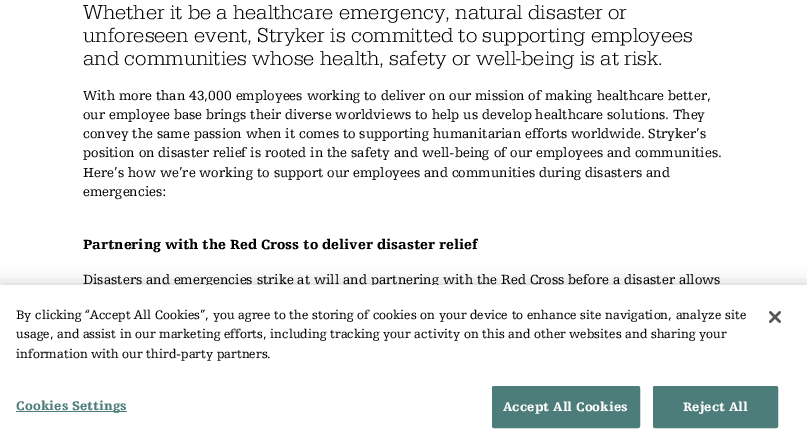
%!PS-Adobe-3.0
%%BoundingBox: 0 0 807 442
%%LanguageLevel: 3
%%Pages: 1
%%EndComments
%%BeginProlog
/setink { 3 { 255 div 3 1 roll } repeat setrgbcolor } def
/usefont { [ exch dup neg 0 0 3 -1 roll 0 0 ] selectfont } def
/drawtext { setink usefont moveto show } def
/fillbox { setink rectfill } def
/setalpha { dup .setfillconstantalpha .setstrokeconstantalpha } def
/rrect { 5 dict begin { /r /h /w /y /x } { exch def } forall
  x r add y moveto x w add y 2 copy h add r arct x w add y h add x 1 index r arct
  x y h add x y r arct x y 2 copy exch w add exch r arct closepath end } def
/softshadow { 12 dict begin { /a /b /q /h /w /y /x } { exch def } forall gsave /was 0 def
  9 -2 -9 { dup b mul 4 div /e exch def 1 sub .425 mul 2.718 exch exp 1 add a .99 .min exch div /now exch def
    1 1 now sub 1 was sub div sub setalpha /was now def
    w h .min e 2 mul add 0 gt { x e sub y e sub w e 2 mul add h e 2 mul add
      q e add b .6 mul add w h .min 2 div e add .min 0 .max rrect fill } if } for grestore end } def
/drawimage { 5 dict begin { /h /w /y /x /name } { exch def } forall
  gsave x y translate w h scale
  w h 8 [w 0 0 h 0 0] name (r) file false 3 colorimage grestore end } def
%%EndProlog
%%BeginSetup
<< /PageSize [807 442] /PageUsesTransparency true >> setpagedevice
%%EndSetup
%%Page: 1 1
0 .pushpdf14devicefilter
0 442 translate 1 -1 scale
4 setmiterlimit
0 0 807 442 255 255 255 fillbox
(Whether it be a healthcare emergency, natural disaster or) 83 19 /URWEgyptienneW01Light-Light 21 0 0 0 drawtext
(unforeseen event, Stryker is committed to supporting employees) 83 42 /URWEgyptienneW01Light-Light 21 0 0 0 drawtext
(and communities whose health, safety or well-being is at risk.) 83 65 /URWEgyptienneW01Light-Light 21 0 0 0 drawtext
(With more than 43,000 employees working to deliver on our mission of making healthcare better,) 83 100 /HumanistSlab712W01-Regular 14 0 0 0 drawtext
(our employee base brings their diverse worldviews to help us develop healthcare solutions. They) 83 119 /HumanistSlab712W01-Regular 14 0 0 0 drawtext
(convey the same passion when it comes to supporting humanitarian efforts worldwide. Stryker’s) 83 138 /HumanistSlab712W01-Regular 14 0 0 0 drawtext
(position on disaster relief is rooted in the safety and well-being of our employees and communities.) 83 157 /HumanistSlab712W01-Regular 14 0 0 0 drawtext
(Here’s how we’re working to support our employees and communities during disasters and) 83 177 /HumanistSlab712W01-Regular 14 0 0 0 drawtext
(emergencies:) 83 196 /HumanistSlab712W01-Regular 14 0 0 0 drawtext
(Partnering with the Red Cross to deliver disaster relief) 83 249 /HumanistSlab712W01-Black 14 0 0 0 drawtext
(Disasters and emergencies strike at will and partnering with the Red Cross before a disaster allows) 83 284 /HumanistSlab712W01-Regular 14 0 0 0 drawtext
0 285 807 157 0 9 0.2 softshadow
0 285 807 157 255 255 255 fillbox
(By clicking “Accept All Cookies”, you agree to the storing of cookies on your device to enhance site navigation, analyze site) 16 319 /HumanistSlab712W01-Regular 13 0 0 0 drawtext
(usage, and assist in our marketing efforts, including tracking your activity on this and other websites and sharing your) 16 338 /HumanistSlab712W01-Regular 13 0 0 0 drawtext
(information with our third-party partners.) 16 358 /HumanistSlab712W01-Regular 13 0 0 0 drawtext
16 411 111 1 76 125 122 fillbox
/HumanistSlab712W01-Black 13 usefont
16 410 moveto 0.1 0 (Cookies Settings) ashow
492.5 386.5 147 41 1.5 rrect gsave fill grestore
stroke
255 255 255 setink
503 411 moveto 0.1 0 (Accept All Cookies) ashow
76 125 122 setink
653.5 386.5 124 41 1.5 rrect gsave fill grestore
stroke
255 255 255 setink
683 411 moveto 0.1 0 (Reject All) ashow
(assets/img1.rgb) 769 311 12 12 drawimage
.poppdf14devicefilter showpage
%%EOF
